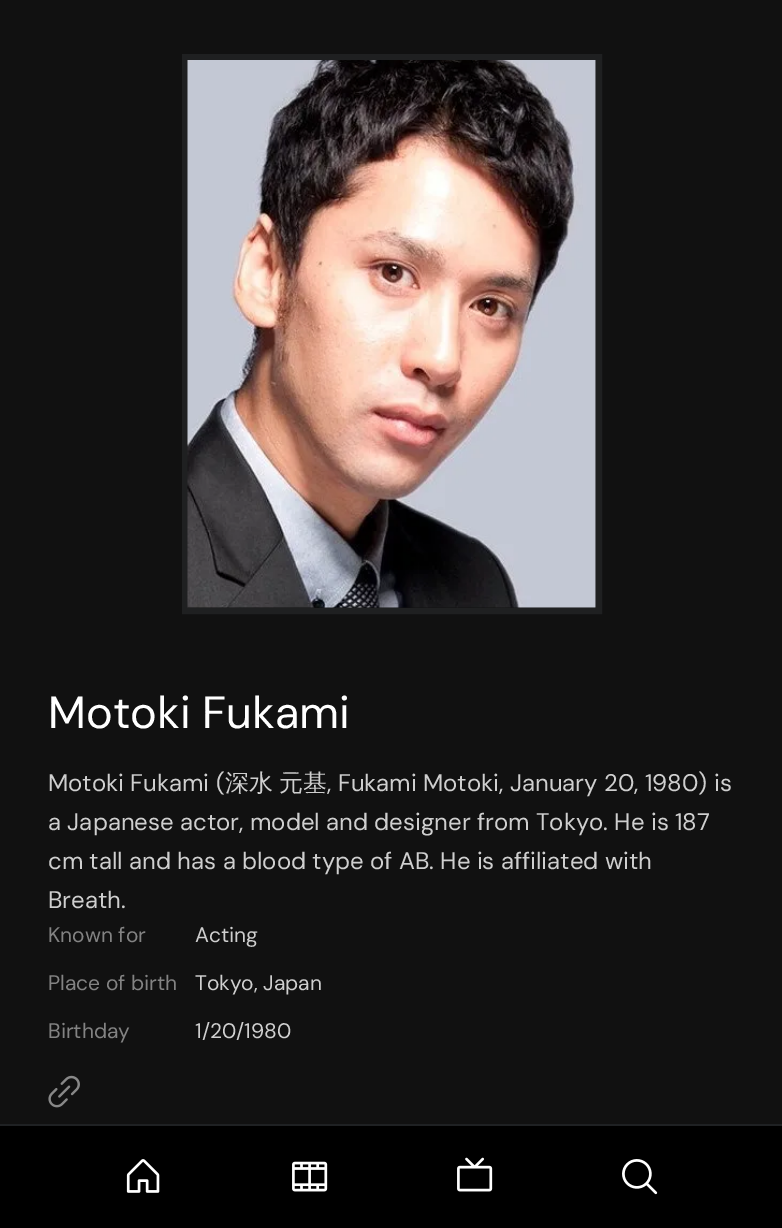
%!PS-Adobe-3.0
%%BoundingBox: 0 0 782 1228
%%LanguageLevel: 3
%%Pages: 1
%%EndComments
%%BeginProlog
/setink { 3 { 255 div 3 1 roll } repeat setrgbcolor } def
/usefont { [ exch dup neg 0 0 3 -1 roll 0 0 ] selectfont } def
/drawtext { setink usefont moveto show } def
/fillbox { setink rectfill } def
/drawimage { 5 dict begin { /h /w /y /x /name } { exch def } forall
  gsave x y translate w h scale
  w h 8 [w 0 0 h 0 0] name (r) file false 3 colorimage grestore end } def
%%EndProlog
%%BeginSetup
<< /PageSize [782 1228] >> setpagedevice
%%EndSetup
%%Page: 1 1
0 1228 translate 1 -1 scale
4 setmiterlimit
0 0 782 1228 17 17 17 fillbox
31 32 33 setink
6 setlinewidth
185 57 414 554 rectstroke
(assets/img1.rgb) 187 60 409 548 drawimage
(Motoki Fukami) 48 728 /DMSans-Regular 45 255 255 255 drawtext
(Motoki Fukami \() 48 791 /DMSans-Regular 24 207 207 207 drawtext
(深水) 225 791 /WenQuanYiZenHei-Medium 24 207 207 207 drawtext
(元基) 279 791 /WenQuanYiZenHei-Medium 24 207 207 207 drawtext
(, Fukami Motoki, January 20, 1980\) is) 327 791 /DMSans-Regular 24 207 207 207 drawtext
(a Japanese actor, model and designer from Tokyo. He is 187) 48 830 /DMSans-Regular 24 207 207 207 drawtext
(cm tall and has a blood type of AB. He is affiliated with) 48 869 /DMSans-Regular 24 207 207 207 drawtext
(Breath.) 48 908 /DMSans-Regular 24 207 207 207 drawtext
(Known for) 48 942 /DMSans-Regular 21 131 131 131 drawtext
(Acting) 195 942 /DMSans-Regular 21 207 207 207 drawtext
(Place of birth) 48 990 /DMSans-Regular 21 131 131 131 drawtext
(Tokyo, Japan) 195 990 /DMSans-Regular 21 207 207 207 drawtext
(Birthday) 48 1038 /DMSans-Regular 21 131 131 131 drawtext
(1/20/1980) 195 1038 /DMSans-Regular 21 207 207 207 drawtext
(assets/img2.rgb) 48 1075 32 33 drawimage
0 1126 782 102 0 0 0 fillbox
0 1124 782 2 31 33 35 fillbox
(assets/img3.rgb) 126 1159 34 34 drawimage
(assets/img4.rgb) 292 1161 36 31 drawimage
(assets/img5.rgb) 457 1157 36 35 drawimage
(assets/img6.rgb) 622 1159 36 36 drawimage
showpage
%%EOF
